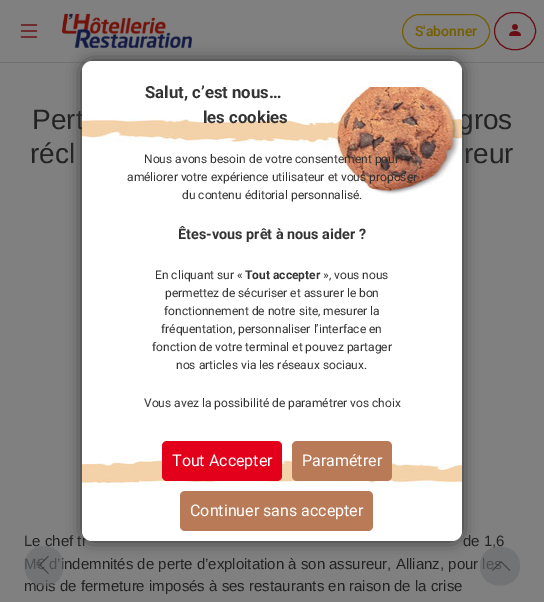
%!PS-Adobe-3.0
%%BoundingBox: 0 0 544 602
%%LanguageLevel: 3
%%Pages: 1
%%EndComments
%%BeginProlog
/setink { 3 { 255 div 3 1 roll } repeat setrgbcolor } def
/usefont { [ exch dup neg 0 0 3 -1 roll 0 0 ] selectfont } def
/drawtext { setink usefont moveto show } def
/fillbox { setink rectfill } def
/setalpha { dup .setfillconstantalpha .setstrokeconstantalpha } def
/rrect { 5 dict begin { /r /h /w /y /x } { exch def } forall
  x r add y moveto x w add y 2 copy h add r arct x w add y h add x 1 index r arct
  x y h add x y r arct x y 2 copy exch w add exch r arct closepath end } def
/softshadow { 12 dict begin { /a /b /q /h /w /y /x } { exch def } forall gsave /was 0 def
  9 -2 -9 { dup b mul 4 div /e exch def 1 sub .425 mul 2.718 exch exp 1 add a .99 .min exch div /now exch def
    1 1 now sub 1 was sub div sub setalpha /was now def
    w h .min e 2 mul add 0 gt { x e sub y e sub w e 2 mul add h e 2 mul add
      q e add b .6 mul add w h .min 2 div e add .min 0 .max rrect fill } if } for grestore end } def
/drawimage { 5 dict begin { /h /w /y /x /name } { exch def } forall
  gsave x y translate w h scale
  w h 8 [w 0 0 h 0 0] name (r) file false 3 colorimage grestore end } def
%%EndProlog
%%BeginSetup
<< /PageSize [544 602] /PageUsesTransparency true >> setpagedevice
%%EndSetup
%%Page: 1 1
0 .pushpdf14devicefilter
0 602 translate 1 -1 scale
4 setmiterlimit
0 0 544 602 128 128 128 fillbox
(assets/img1.rgb) 20 24 18 14 drawimage
(assets/img2.rgb) 62 13 130 35 drawimage
117 94 1 setink
402.5 14.5 87 34 17 rrect stroke
(S'abonner) 415 36 /Roboto-Medium 14 117 94 1 drawtext
103 15 20 setink
494.5 12.5 41 37 18.5 rrect stroke
(assets/img3.rgb) 509 24 12 12 drawimage
0 62 544 1 111 113 115 fillbox
(Pert) 32 129 /LiberationSans-Regular 28 34 34 34 drawtext
(gros) 458 129 /LiberationSans-Regular 28 34 34 34 drawtext
(récl) 30 163 /LiberationSans-Regular 28 34 34 34 drawtext
(reur) 464 163 /LiberationSans-Regular 28 34 34 34 drawtext
(Le chef tr) 24 546 /LiberationSans-Regular 15 34 34 34 drawtext
(de 1,6) 463 546 /LiberationSans-Regular 15 34 34 34 drawtext
(M€ d’indemnités de perte d’exploitation à son assureur, Allianz, pour les) 24 569 /LiberationSans-Regular 15 34 34 34 drawtext
(mois de fermeture imposés à ses restaurants en raison de la crise) 24 591 /LiberationSans-Regular 15 34 34 34 drawtext
0.6 setalpha
103 106 109 setink
44 586 moveto 18 586 18 546 44 546 curveto 70 546 70 586 44 586 curveto closepath fill
1 setalpha
(assets/img4.rgb) 39 555 10 19 drawimage
0.6 setalpha
480 566 moveto 480 540 520 540 520 566 curveto 520 592 480 592 480 566 curveto closepath fill
1 setalpha
(assets/img5.rgb) 492 561 19 10 drawimage
51 51 51 setink
82 61 380 480 10 7.5 1 softshadow
255 255 255 setink
82 61 380 480 10 rrect fill
(assets/img6.rgb) 82 87 380 400 drawimage
(Salut, c’est nous…) 145 98 /Roboto-Bold 16.75 51 51 51 drawtext
(les cookies) 203 123 /Roboto-Bold 16.75 51 51 51 drawtext
(Nous avons besoin de votre consentement pour) 144 163 /Roboto-Regular 12 51 51 51 drawtext
(améliorer votre expérience utilisateur et vous proposer) 127 181 /Roboto-Regular 12 51 51 51 drawtext
(du contenu éditorial personnalisé.) 182 199 /Roboto-Regular 12 51 51 51 drawtext
(Êtes-vous prêt à nous aider ?) 178 239 /Roboto-Bold 14.4 51 51 51 drawtext
(En cliquant sur «) 155 279 /Roboto-Regular 12 51 51 51 drawtext
(Tout accepter) 245 279 /Roboto-Bold 12 51 51 51 drawtext
(», vous nous) 323 279 /Roboto-Regular 12 51 51 51 drawtext
(permettez de sécuriser et assurer le bon) 165 297 /Roboto-Regular 12 51 51 51 drawtext
(fonctionnement de notre site, mesurer la) 164 315 /Roboto-Regular 12 51 51 51 drawtext
(fréquentation, personnaliser l’interface en) 161 333 /Roboto-Regular 12 51 51 51 drawtext
(fonction de votre terminal et pouvez partager) 152 351 /Roboto-Regular 12 51 51 51 drawtext
(nos articles via les réseaux sociaux.) 176 369 /Roboto-Regular 12 51 51 51 drawtext
(Vous avez la possibilité de paramétrer vos choix) 144 407 /Roboto-Regular 12 51 51 51 drawtext
227 0 26 setink
162 441 120 40 5 rrect fill
(Tout Accepter) 172 466 /Roboto-Regular 16 255 255 255 drawtext
185 122 87 setink
292 441 100 40 5 rrect fill
(Paramétrer) 302 466 /Roboto-Regular 16 255 255 255 drawtext
185 122 87 setink
180 491 193 40 5 rrect fill
(Continuer sans accepter) 190 516 /Roboto-Regular 16 255 255 255 drawtext
.poppdf14devicefilter showpage
%%EOF
